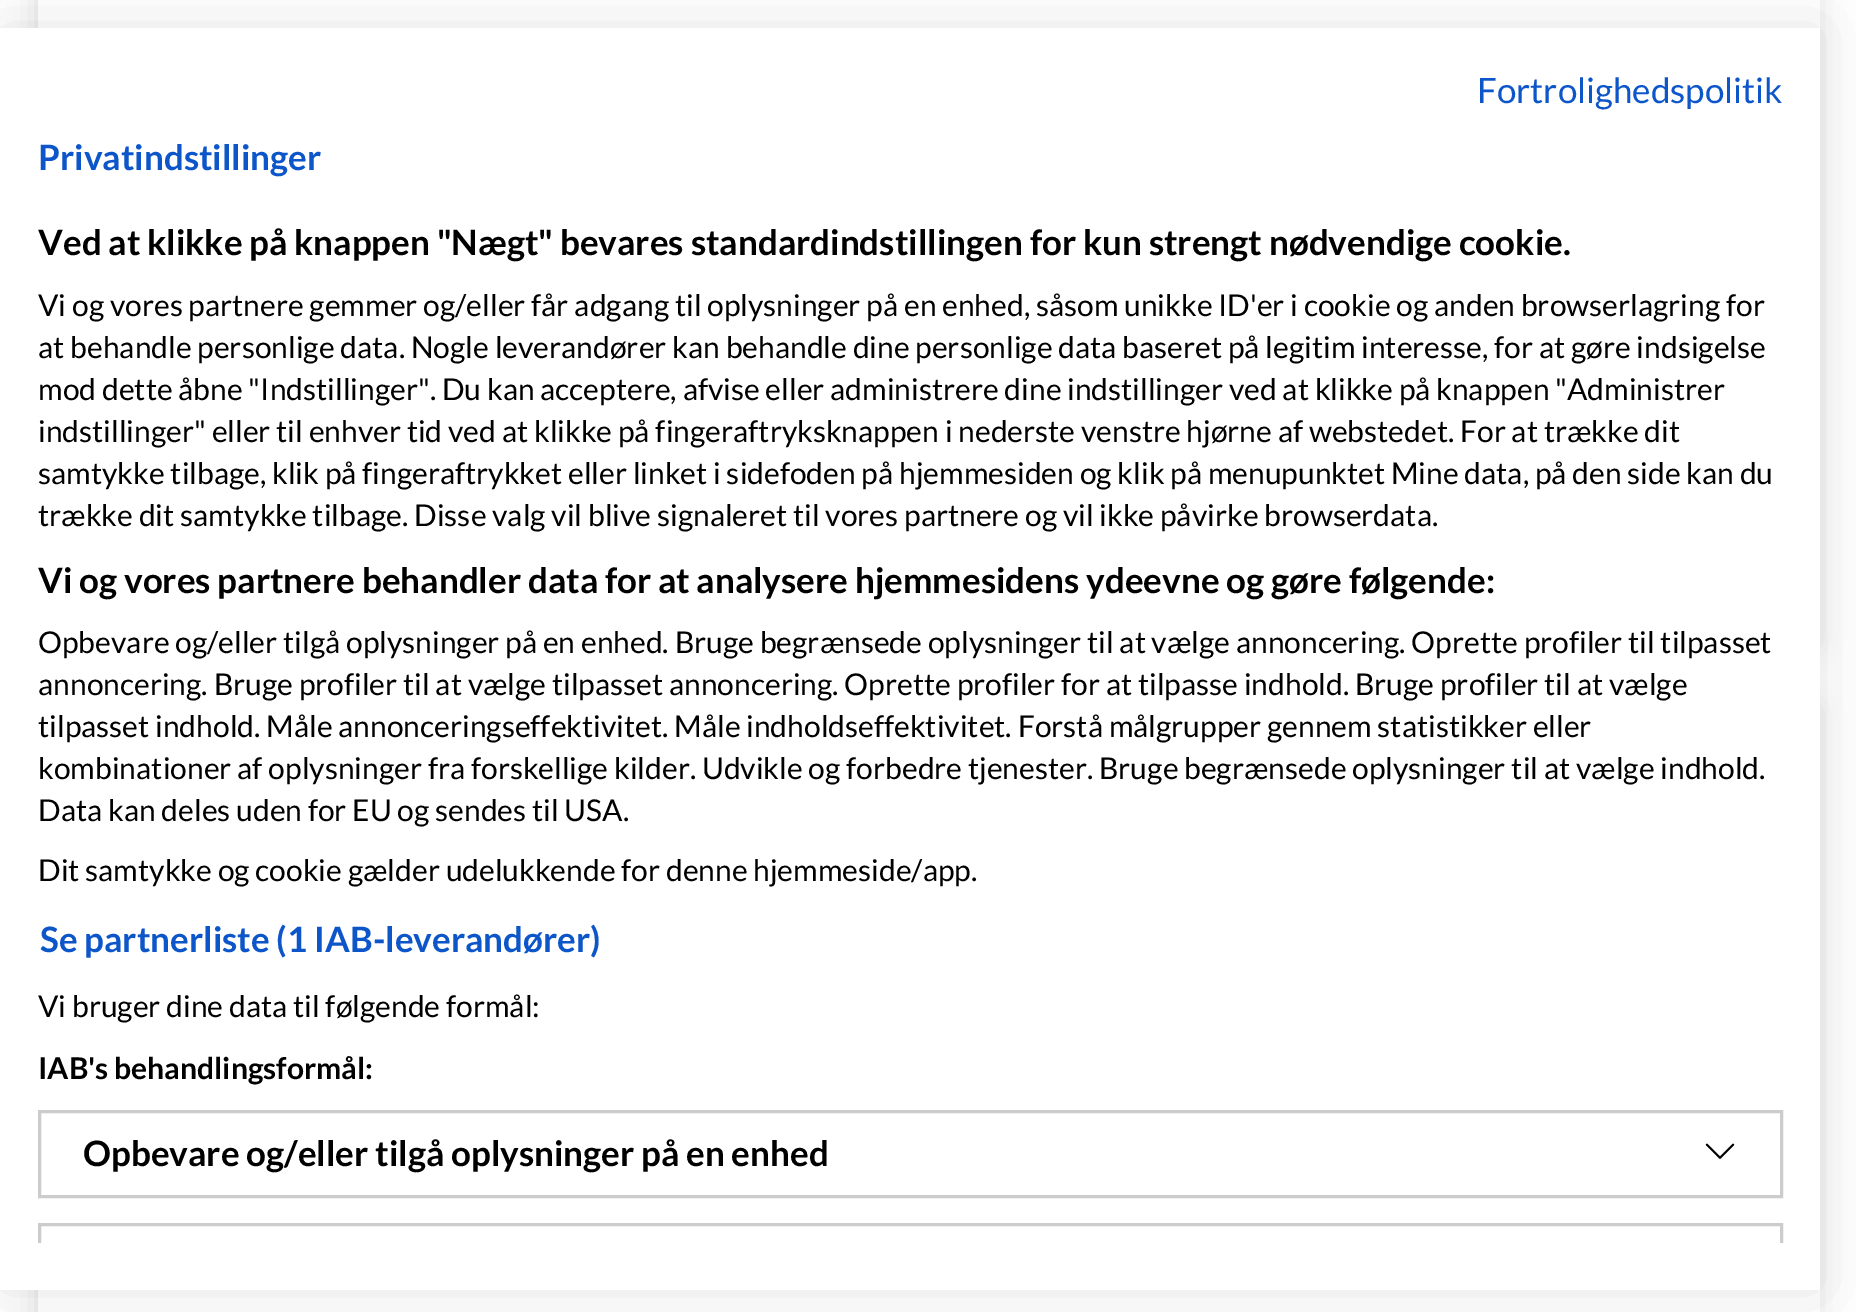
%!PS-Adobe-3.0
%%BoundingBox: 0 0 1856 1312
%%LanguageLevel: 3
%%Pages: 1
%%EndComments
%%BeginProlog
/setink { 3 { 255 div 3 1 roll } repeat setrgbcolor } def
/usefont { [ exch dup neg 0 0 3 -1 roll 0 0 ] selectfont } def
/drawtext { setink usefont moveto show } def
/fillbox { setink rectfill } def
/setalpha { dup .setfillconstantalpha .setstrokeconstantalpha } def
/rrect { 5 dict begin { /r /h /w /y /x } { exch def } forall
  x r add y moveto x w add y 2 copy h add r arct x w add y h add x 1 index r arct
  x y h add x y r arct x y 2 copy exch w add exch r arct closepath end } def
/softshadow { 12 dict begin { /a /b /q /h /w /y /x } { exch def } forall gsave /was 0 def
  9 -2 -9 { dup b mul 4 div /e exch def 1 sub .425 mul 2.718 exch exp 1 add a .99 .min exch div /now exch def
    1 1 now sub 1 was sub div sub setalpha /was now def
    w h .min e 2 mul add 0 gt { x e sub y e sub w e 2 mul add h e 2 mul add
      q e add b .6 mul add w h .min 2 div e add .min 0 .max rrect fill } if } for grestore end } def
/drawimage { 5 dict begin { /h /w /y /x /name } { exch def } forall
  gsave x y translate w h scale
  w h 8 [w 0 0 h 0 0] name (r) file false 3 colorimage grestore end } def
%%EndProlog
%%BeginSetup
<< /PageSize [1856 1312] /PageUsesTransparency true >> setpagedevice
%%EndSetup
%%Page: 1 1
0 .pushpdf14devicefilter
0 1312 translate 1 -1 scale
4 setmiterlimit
0 0 1856 1312 255 255 255 fillbox
gsave
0 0 moveto 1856 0 lineto 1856 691 lineto 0 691 lineto closepath 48 -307 moveto 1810 -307 lineto 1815.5 -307 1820 -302.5 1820 -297 curveto 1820 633 lineto 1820 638.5 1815.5 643 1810 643 curveto 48 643 lineto 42.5 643 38 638.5 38 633 curveto 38 -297 lineto 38 -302.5 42.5 -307 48 -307 curveto closepath eoclip newpath
221 221 221 setink
38 -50 1777 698 8 14 1 softshadow
grestore
gsave
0 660 moveto 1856 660 lineto 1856 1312 lineto 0 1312 lineto closepath 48 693 moveto 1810 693 lineto 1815.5 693 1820 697.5 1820 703 curveto 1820 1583 lineto 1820 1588.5 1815.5 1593 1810 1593 curveto 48 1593 lineto 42.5 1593 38 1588.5 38 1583 curveto 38 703 lineto 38 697.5 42.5 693 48 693 curveto closepath eoclip newpath
221 221 221 setink
38 703 1777 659 8 14 1 softshadow
grestore
0 0 0 setink
0 28 1820 1262 0 30 0.1 softshadow
0 28 1820 1262 255 255 255 fillbox
(Fortrolighedspolitik) 1477 103 /Lato-Regular 35 13 86 201 drawtext
(Privatindstillinger) 38 170 /Lato-Bold 35 13 86 201 drawtext
(Ved at klikke på knappen "Nægt" bevares standardindstillingen for kun strengt nødvendige cookie.) 38 255 /Lato-Bold 35 0 0 0 drawtext
(Vi og vores partnere gemmer og/eller får adgang til oplysninger på en enhed, såsom unikke ID'er i cookie og anden browserlagring for) 38 316 /Lato-Regular 30 0 0 0 drawtext
(at behandle personlige data. Nogle leverandører kan behandle dine personlige data baseret på legitim interesse, for at gøre indsigelse) 38 358 /Lato-Regular 30 0 0 0 drawtext
(mod dette åbne "Indstillinger". Du kan acceptere, afvise eller administrere dine indstillinger ved at klikke på knappen "Administrer) 38 400 /Lato-Regular 30 0 0 0 drawtext
(indstillinger" eller til enhver tid ved at klikke på fingeraftryksknappen i nederste venstre hjørne af webstedet. For at trække dit) 38 442 /Lato-Regular 30 0 0 0 drawtext
(samtykke tilbage, klik på fingeraftrykket eller linket i sidefoden på hjemmesiden og klik på menupunktet Mine data, på den side kan du) 38 484 /Lato-Regular 30 0 0 0 drawtext
(trække dit samtykke tilbage. Disse valg vil blive signaleret til vores partnere og vil ikke påvirke browserdata.) 38 526 /Lato-Regular 30 0 0 0 drawtext
(Vi og vores partnere behandler data for at analysere hjemmesidens ydeevne og gøre følgende:) 38 593 /Lato-Bold 35 0 0 0 drawtext
(Opbevare og/eller tilgå oplysninger på en enhed. Bruge begrænsede oplysninger til at vælge annoncering. Oprette profiler til tilpasset) 38 653 /Lato-Regular 30 0 0 0 drawtext
(annoncering. Bruge profiler til at vælge tilpasset annoncering. Oprette profiler for at tilpasse indhold. Bruge profiler til at vælge) 38 695 /Lato-Regular 30 0 0 0 drawtext
(tilpasset indhold. Måle annonceringseffektivitet. Måle indholdseffektivitet. Forstå målgrupper gennem statistikker eller) 38 737 /Lato-Regular 30 0 0 0 drawtext
(kombinationer af oplysninger fra forskellige kilder. Udvikle og forbedre tjenester. Bruge begrænsede oplysninger til at vælge indhold.) 38 779 /Lato-Regular 30 0 0 0 drawtext
(Data kan deles uden for EU og sendes til USA.) 38 821 /Lato-Regular 30 0 0 0 drawtext
(Dit samtykke og cookie gælder udelukkende for denne hjemmeside/app.) 38 881 /Lato-Regular 30 0 0 0 drawtext
(Se partnerliste \(1 IAB-leverandører\)) 40 952 /Lato-Bold 35 13 86 201 drawtext
(Vi bruger dine data til følgende formål:) 38 1017 /Lato-Regular 30 0 0 0 drawtext
(IAB's behandlingsformål:) 38 1079 /Lato-Bold 30 0 0 0 drawtext
204 204 204 setink
3 setlinewidth
39.5 1111.5 1742 85 rectstroke
(Opbevare og/eller tilgå oplysninger på en enhed) 83 1166 /Lato-Bold 35 0 0 0 drawtext
(assets/img1.rgb) 1705 1143 30 16 drawimage
gsave
0 118 1820 1125 rectclip
204 204 204 setink
39.5 1224.5 1742 84 rectstroke
grestore
.poppdf14devicefilter showpage
%%EOF
